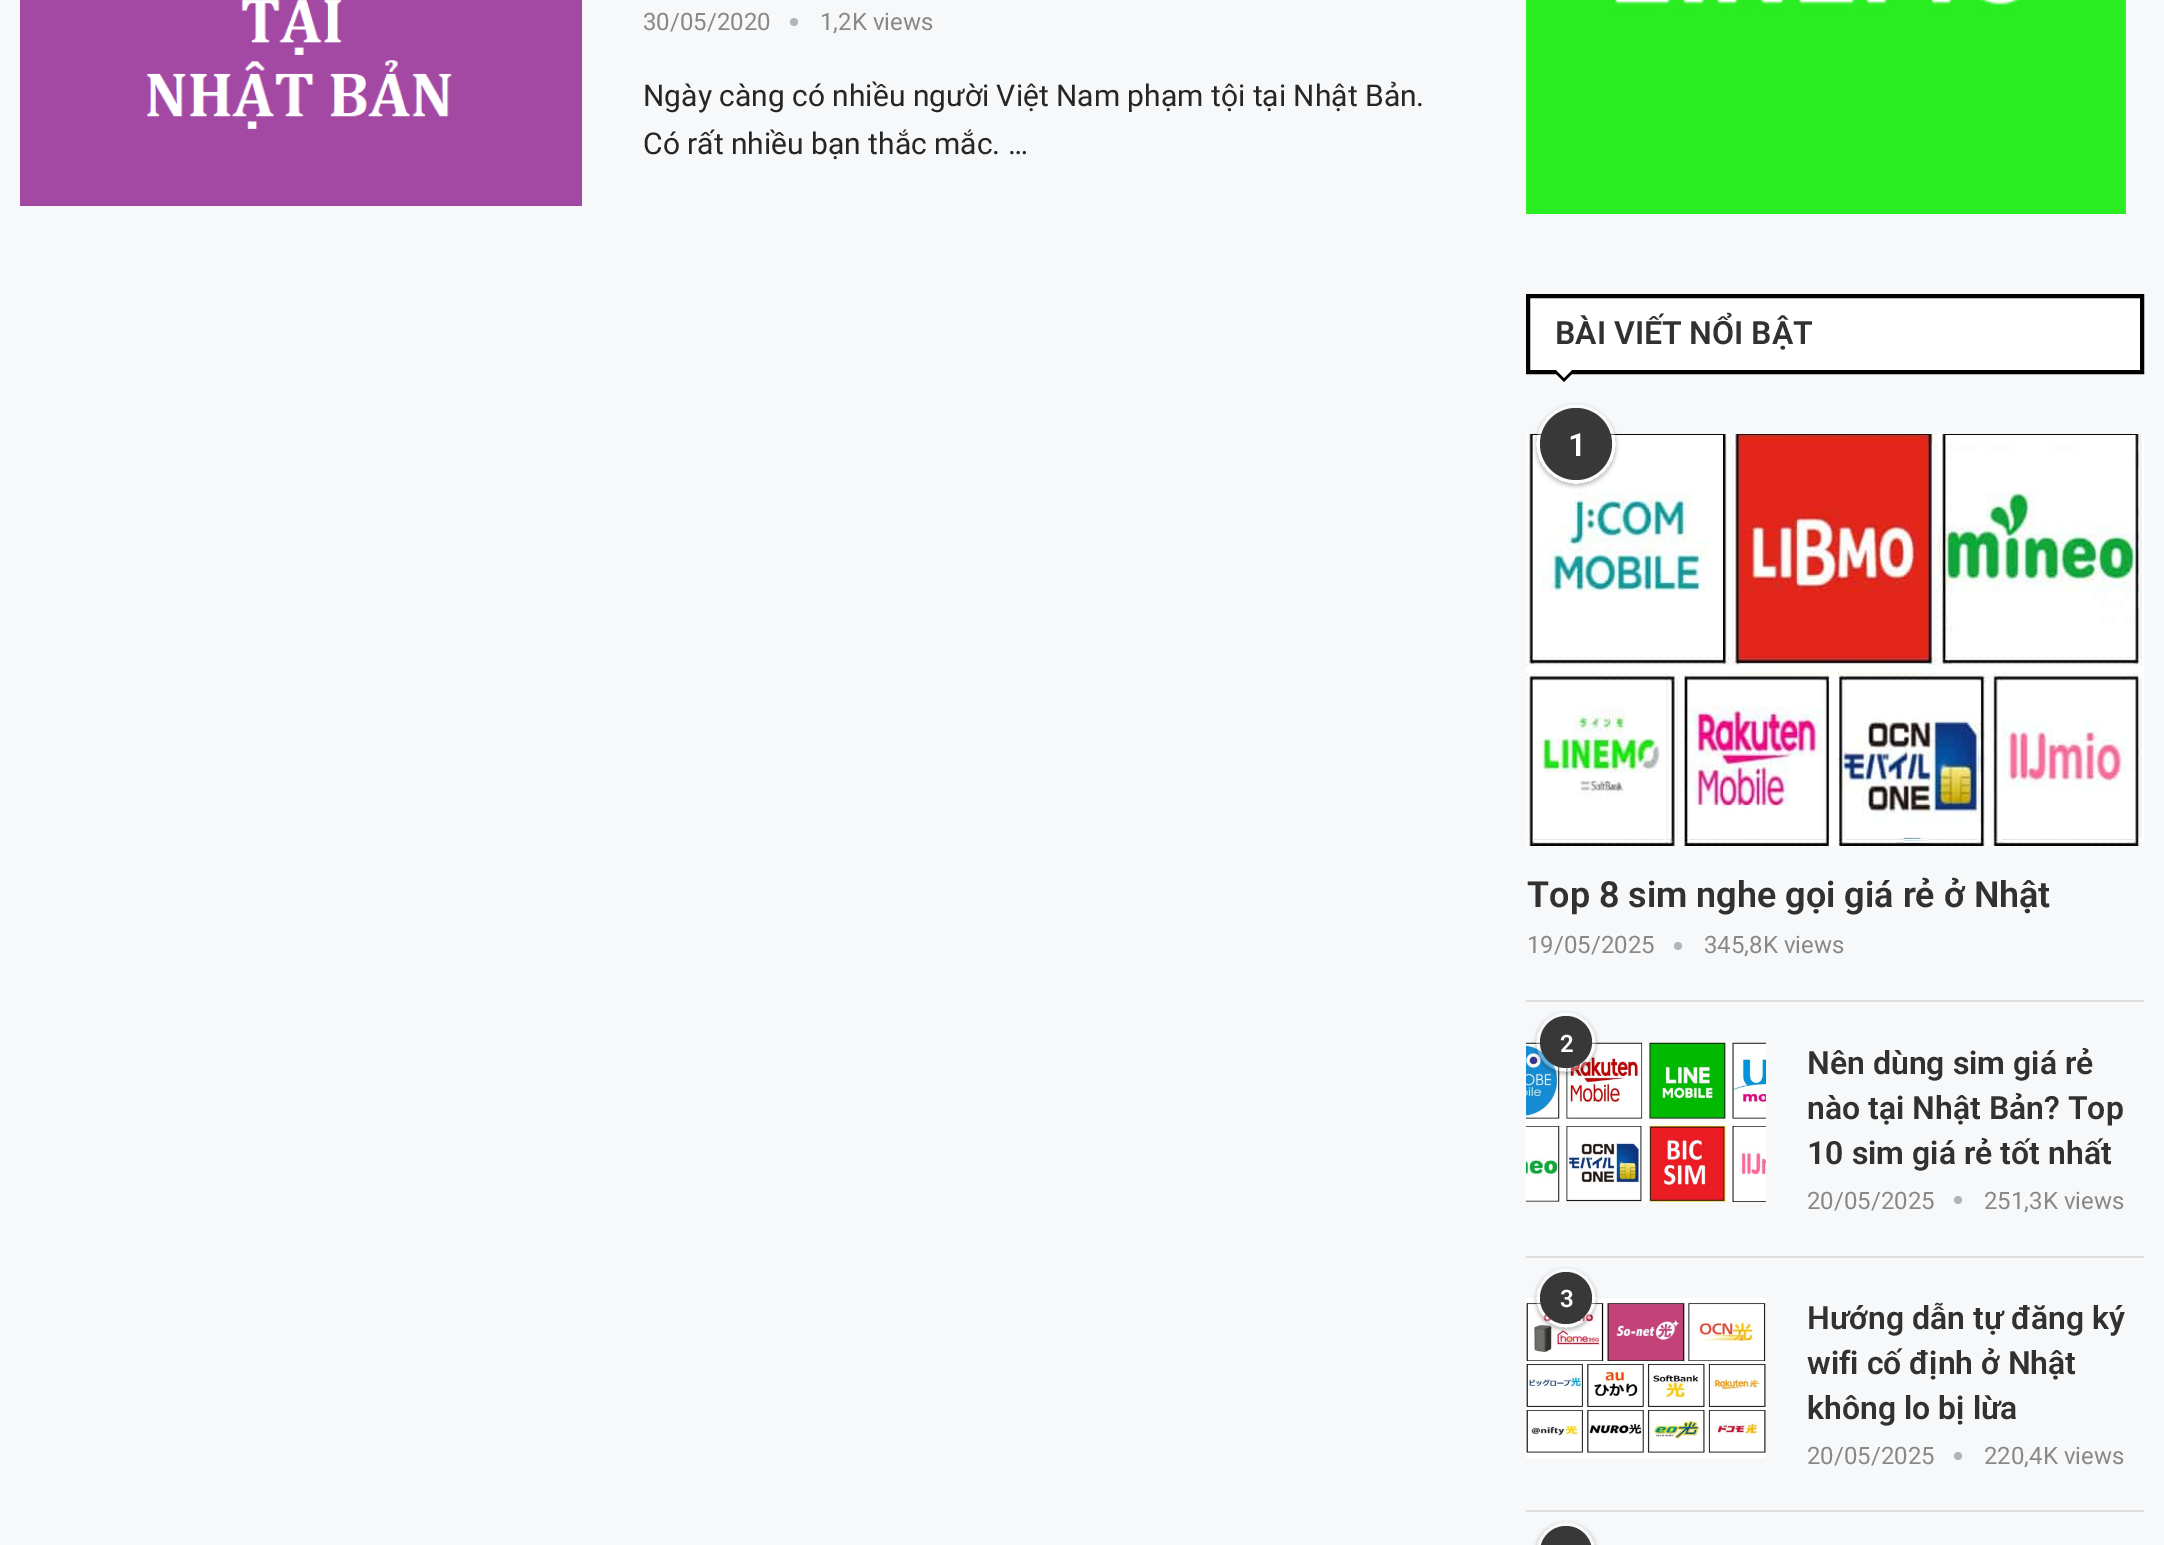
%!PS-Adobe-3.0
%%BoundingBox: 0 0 2164 1545
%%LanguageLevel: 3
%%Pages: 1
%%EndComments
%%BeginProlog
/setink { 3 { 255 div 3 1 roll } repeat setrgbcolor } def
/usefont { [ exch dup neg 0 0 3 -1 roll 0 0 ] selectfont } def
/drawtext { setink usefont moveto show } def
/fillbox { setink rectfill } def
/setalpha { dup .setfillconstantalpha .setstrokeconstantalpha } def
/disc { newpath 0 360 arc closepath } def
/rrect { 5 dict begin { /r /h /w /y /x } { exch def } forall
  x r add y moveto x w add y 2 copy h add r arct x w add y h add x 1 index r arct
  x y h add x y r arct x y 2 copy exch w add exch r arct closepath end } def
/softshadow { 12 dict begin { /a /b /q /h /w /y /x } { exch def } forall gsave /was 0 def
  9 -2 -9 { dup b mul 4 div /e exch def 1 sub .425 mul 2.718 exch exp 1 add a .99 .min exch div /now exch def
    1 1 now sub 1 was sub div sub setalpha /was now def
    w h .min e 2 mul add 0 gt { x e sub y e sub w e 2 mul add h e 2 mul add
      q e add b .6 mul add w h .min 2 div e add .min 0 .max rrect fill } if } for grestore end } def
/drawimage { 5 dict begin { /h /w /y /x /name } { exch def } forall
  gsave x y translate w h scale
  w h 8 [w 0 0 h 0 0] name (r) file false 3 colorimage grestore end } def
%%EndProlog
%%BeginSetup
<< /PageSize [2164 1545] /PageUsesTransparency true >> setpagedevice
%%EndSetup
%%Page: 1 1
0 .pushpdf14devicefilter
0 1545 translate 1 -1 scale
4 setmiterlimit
0 0 2164 1545 246 248 250 fillbox
(assets/img1.rgb) 20 0 562 206 drawimage
(30/05/2020) 643 30 /Roboto-Regular 24 136 136 136 drawtext
180 181 182 setink
794 22 4 disc fill
(1,2K views) 820 30 /Roboto-Regular 24 136 136 136 drawtext
(Ngày càng có nhiều người Việt Nam phạm tội tại Nhật Bản.) 643 106 /Roboto-Regular 30 38 38 38 drawtext
(Có rất nhiều bạn thắc mắc. …) 643 154 /Roboto-Regular 30 38 38 38 drawtext
(assets/img2.rgb) 1526 0 600 214 drawimage
255 255 255 setink
1528 296 moveto 2142 296 lineto 2142 372 lineto 1528 372 lineto closepath gsave fill grestore
0 0 0 setink
4 setlinewidth
stroke
(BÀI VIẾT NỔI BẬT) 1555 344 /Roboto-SemiBold 32 49 49 49 drawtext
0 0 0 setink
1552 370 moveto 1576 370 lineto 1564 382 lineto closepath fill
255 255 255 setink
1552 366 moveto 1576 366 lineto 1564 378 lineto closepath fill
1526 1000 618 2 222 222 222 fillbox
(assets/img3.rgb) 1526 434 618 412 drawimage
gsave
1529 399 moveto 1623 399 lineto 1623 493 lineto 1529 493 lineto closepath 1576 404 moveto 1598 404 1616 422 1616 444 curveto 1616 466 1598 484 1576 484 curveto 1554 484 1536 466 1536 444 curveto 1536 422 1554 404 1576 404 curveto closepath eoclip newpath
0 0 0 setink
1536 406 80 80 40 2 0.25 softshadow
grestore
0.3 setalpha
255 255 255 setink
1576 444 40 disc fill
1 setalpha
56 56 56 setink
1576 444 36 disc fill
(1) 1568 456 /Roboto-SemiBold 32 255 255 255 drawtext
(Top 8 sim nghe gọi giá rẻ ở Nhật) 1527 907 /Roboto-SemiBold 36 49 49 49 drawtext
(19/05/2025) 1527 953 /Roboto-Regular 24 136 136 136 drawtext
180 181 182 setink
1678 946 4 disc fill
(345,8K views) 1704 953 /Roboto-Regular 24 136 136 136 drawtext
1526 1256 618 2 222 222 222 fillbox
(assets/img4.rgb) 1526 1042 240 160 drawimage
gsave
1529 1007 moveto 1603 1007 lineto 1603 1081 lineto 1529 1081 lineto closepath 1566 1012 moveto 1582.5 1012 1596 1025.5 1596 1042 curveto 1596 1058.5 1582.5 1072 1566 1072 curveto 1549.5 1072 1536 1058.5 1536 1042 curveto 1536 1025.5 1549.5 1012 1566 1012 curveto closepath eoclip newpath
0 0 0 setink
1536 1014 60 60 30 2 0.25 softshadow
grestore
0.3 setalpha
255 255 255 setink
1566 1042 30 disc fill
1 setalpha
56 56 56 setink
1566 1042 26 disc fill
(2) 1560 1052 /Roboto-SemiBold 24 255 255 255 drawtext
(Nên dùng sim giá rẻ) 1807 1074 /Roboto-SemiBold 32 49 49 49 drawtext
(nào tại Nhật Bản? Top) 1807 1119 /Roboto-SemiBold 32 49 49 49 drawtext
(10 sim giá rẻ tốt nhất) 1807 1164 /Roboto-SemiBold 32 49 49 49 drawtext
(20/05/2025) 1807 1209 /Roboto-Regular 24 136 136 136 drawtext
180 181 182 setink
1958 1200 4 disc fill
(251,3K views) 1984 1209 /Roboto-Regular 24 136 136 136 drawtext
1526 1510 618 2 222 222 222 fillbox
(assets/img5.rgb) 1526 1298 240 160 drawimage
gsave
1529 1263 moveto 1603 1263 lineto 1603 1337 lineto 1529 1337 lineto closepath 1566 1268 moveto 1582.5 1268 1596 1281.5 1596 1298 curveto 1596 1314.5 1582.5 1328 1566 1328 curveto 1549.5 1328 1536 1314.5 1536 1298 curveto 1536 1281.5 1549.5 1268 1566 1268 curveto closepath eoclip newpath
0 0 0 setink
1536 1270 60 60 30 2 0.25 softshadow
grestore
0.3 setalpha
255 255 255 setink
1566 1298 30 disc fill
1 setalpha
56 56 56 setink
1566 1298 26 disc fill
(3) 1560 1307 /Roboto-SemiBold 24 255 255 255 drawtext
(Hướng dẫn tự đăng ký) 1807 1329 /Roboto-SemiBold 32 49 49 49 drawtext
(wifi cố định ở Nhật) 1807 1374 /Roboto-SemiBold 32 49 49 49 drawtext
(không lo bị lừa) 1807 1419 /Roboto-SemiBold 32 49 49 49 drawtext
(20/05/2025) 1807 1464 /Roboto-Regular 24 136 136 136 drawtext
180 181 182 setink
1958 1456 4 disc fill
(220,4K views) 1984 1464 /Roboto-Regular 24 136 136 136 drawtext
gsave
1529 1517 moveto 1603 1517 lineto 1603 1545 lineto 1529 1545 lineto closepath 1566 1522 moveto 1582.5 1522 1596 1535.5 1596 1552 curveto 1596 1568.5 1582.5 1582 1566 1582 curveto 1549.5 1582 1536 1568.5 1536 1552 curveto 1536 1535.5 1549.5 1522 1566 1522 curveto closepath eoclip newpath
0 0 0 setink
1536 1524 60 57 30 2 0.25 softshadow
grestore
0.3 setalpha
255 255 255 setink
1536 1522 60 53 30 rrect fill
1 setalpha
56 56 56 setink
1540 1526 52 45 26 rrect fill
.poppdf14devicefilter showpage
%%EOF
